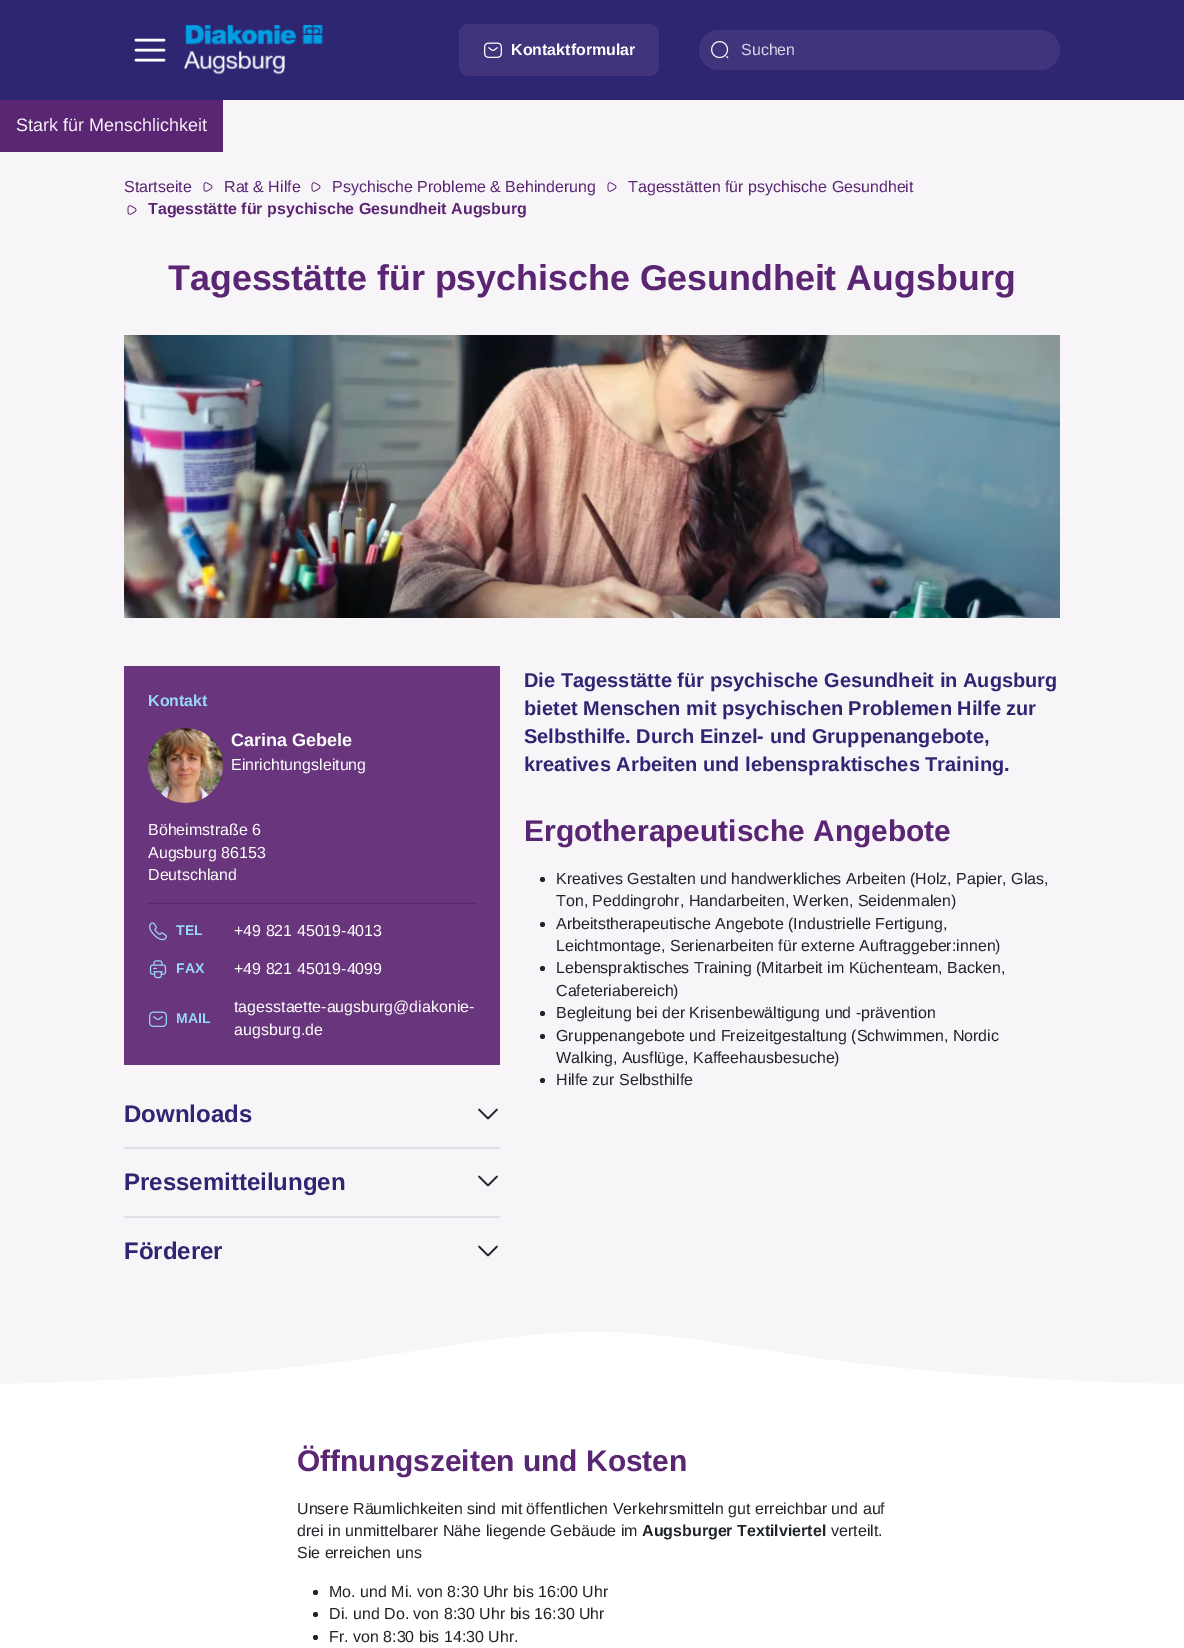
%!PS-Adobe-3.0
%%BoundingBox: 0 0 1184 1648
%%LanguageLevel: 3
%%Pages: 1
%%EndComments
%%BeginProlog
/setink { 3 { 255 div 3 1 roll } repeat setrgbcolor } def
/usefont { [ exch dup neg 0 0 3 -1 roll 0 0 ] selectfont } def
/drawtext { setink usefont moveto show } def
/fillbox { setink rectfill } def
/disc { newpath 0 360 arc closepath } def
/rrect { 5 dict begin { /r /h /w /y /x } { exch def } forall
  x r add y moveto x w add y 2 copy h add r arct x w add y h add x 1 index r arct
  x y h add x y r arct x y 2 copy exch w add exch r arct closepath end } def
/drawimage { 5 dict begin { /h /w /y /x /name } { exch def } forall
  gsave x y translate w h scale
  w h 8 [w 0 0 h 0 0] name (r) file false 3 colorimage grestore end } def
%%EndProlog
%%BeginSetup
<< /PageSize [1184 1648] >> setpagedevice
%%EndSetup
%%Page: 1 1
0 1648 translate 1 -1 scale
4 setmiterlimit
0 0 1184 1648 248 245 249 fillbox
0 0 1184 100 46 38 114 fillbox
255 255 255 setink
2.5 setlinewidth
1 setlinecap
136 40 moveto 164 40 lineto 136 50 moveto 164 50 lineto 136 60 moveto 164 60 lineto stroke
(assets/img1.rgb) 184 25 139 50 drawimage
65 52 124 setink
459 24 200 52 10 rrect fill
(assets/img2.rgb) 484 42 18 16 drawimage
(Kontaktformular) 511 55 /LiberationSans-Bold 16 255 255 255 drawtext
65 52 124 setink
699 30 361 40 20 rrect fill
(assets/img3.rgb) 711 41 18 18 drawimage
(Suchen) 741 55 /LiberationSans-Regular 16 217 214 229 drawtext
0 100 223 52 90 37 114 fillbox
(Stark für Menschlichkeit) 16 131 /LiberationSans-Regular 18 246 245 249 drawtext
(Startseite) 124 192 /LiberationSans-Regular 16 90 37 114 drawtext
(assets/img4.rgb) 203 182 10 10 drawimage
(Rat & Hilfe) 224 192 /LiberationSans-Regular 16 90 37 114 drawtext
(assets/img4.rgb) 311 182 10 10 drawimage
(Psychische Probleme & Behinderung) 332 192 /LiberationSans-Regular 16 90 37 114 drawtext
(assets/img4.rgb) 607 182 10 10 drawimage
(Tagesstätten für psychische Gesundheit) 628 192 /LiberationSans-Regular 16 90 37 114 drawtext
(assets/img4.rgb) 127 205 10 10 drawimage
(Tagesstätte für psychische Gesundheit Augsburg) 148 214 /LiberationSans-Bold 16 90 37 114 drawtext
(Tagesstätte für psychische Gesundheit Augsburg) 168 290 /LiberationSans-Bold 35.8 90 37 114 drawtext
(assets/img5.rgb) 124 335 936 283 drawimage
124 666 376 399 105 53 124 fillbox
(Kontakt) 148 706 /LiberationSans-Bold 16 153 216 244 drawtext
(assets/img6.rgb) 148 728 75 75 drawimage
(Carina Gebele) 231 746 /LiberationSans-Bold 18 255 255 255 drawtext
(Einrichtungsleitung) 231 770 /LiberationSans-Regular 16 255 255 255 drawtext
(Böheimstraße 6) 148 835 /LiberationSans-Regular 16 255 255 255 drawtext
(Augsburg 86153) 148 858 /LiberationSans-Regular 16 255 255 255 drawtext
(Deutschland) 148 880 /LiberationSans-Regular 16 255 255 255 drawtext
148 903 328 1 90 37 114 fillbox
(assets/img7.rgb) 149 922 18 19 drawimage
(TEL) 176 935 /LiberationSans-Bold 14 153 216 244 drawtext
(+49 821 45019-4013) 234 936 /LiberationSans-Regular 16 255 255 255 drawtext
(assets/img8.rgb) 149 960 18 19 drawimage
(FAX) 176 973 /LiberationSans-Bold 14 153 216 244 drawtext
(+49 821 45019-4099) 234 974 /LiberationSans-Regular 16 255 255 255 drawtext
(assets/img9.rgb) 149 1011 18 16 drawimage
(MAIL) 176 1023 /LiberationSans-Bold 14 153 216 244 drawtext
(tagesstaette-augsburg@diakonie-) 234 1012 /LiberationSans-Regular 16 255 255 255 drawtext
(augsburg.de) 234 1035 /LiberationSans-Regular 16 255 255 255 drawtext
(Downloads) 124 1122 /LiberationSans-Bold 24 46 38 114 drawtext
33 37 41 setink
1.5 setlinewidth
1 setlinejoin
479 1109.5 moveto 488 1118.5 lineto 497 1109.5 lineto stroke
124 1147 376 2 222 226 230 fillbox
(Pressemitteilungen) 124 1190 /LiberationSans-Bold 24 46 38 114 drawtext
33 37 41 setink
479 1176.5 moveto 488 1185.5 lineto 497 1176.5 lineto stroke
124 1216 376 2 222 226 230 fillbox
(Förderer) 124 1259 /LiberationSans-Bold 24 46 38 114 drawtext
33 37 41 setink
479 1246.5 moveto 488 1255.5 lineto 497 1246.5 lineto stroke
(Die Tagesstätte für psychische Gesundheit in Augsburg) 524 687 /LiberationSans-Bold 20 46 38 114 drawtext
(bietet Menschen mit psychischen Problemen Hilfe zur) 524 715 /LiberationSans-Bold 20 46 38 114 drawtext
(Selbsthilfe. Durch Einzel- und Gruppenangebote,) 524 743 /LiberationSans-Bold 20 46 38 114 drawtext
(kreatives Arbeiten und lebenspraktisches Training.) 524 771 /LiberationSans-Bold 20 46 38 114 drawtext
(Ergotherapeutische Angebote) 524 841 /LiberationSans-Bold 29.9 90 37 114 drawtext
33 37 41 setink
542.5 879.5 2.5 disc fill
(Kreatives Gestalten und handwerkliches Arbeiten \(Holz, Papier, Glas,) 556 884 /LiberationSans-Regular 16 33 37 41 drawtext
(Ton, Peddingrohr, Handarbeiten, Werken, Seidenmalen\)) 556 906 /LiberationSans-Regular 16 33 37 41 drawtext
542.5 924.5 2.5 disc fill
(Arbeitstherapeutische Angebote \(Industrielle Fertigung,) 556 929 /LiberationSans-Regular 16 33 37 41 drawtext
(Leichtmontage, Serienarbeiten für externe Auftraggeber:innen\)) 556 951 /LiberationSans-Regular 16 33 37 41 drawtext
542.5 968.5 2.5 disc fill
(Lebenspraktisches Training \(Mitarbeit im Küchenteam, Backen,) 556 973 /LiberationSans-Regular 16 33 37 41 drawtext
(Cafeteriabereich\)) 556 996 /LiberationSans-Regular 16 33 37 41 drawtext
542.5 1013.5 2.5 disc fill
(Begleitung bei der Krisenbewältigung und -prävention) 556 1018 /LiberationSans-Regular 16 33 37 41 drawtext
542.5 1036.5 2.5 disc fill
(Gruppenangebote und Freizeitgestaltung \(Schwimmen, Nordic) 556 1041 /LiberationSans-Regular 16 33 37 41 drawtext
(Walking, Ausflüge, Kaffeehausbesuche\)) 556 1063 /LiberationSans-Regular 16 33 37 41 drawtext
542.5 1080.5 2.5 disc fill
(Hilfe zur Selbsthilfe) 556 1085 /LiberationSans-Regular 16 33 37 41 drawtext
0 1384 1184 264 255 255 255 fillbox
0 1384 moveto 0 1384 220 1380 368 1358 curveto 441 1348 520 1332 592 1332 curveto 672 1332 750 1349 816 1358 curveto 998 1383 1184 1384 1184 1384 curveto closepath fill
(Öffnungszeiten und Kosten) 297 1471 /LiberationSans-Bold 29.9 90 37 114 drawtext
(Unsere Räumlichkeiten sind mit öffentlichen Verkehrsmitteln gut erreichbar und auf) 297 1514 /LiberationSans-Regular 16 33 37 41 drawtext
(drei in unmittelbarer Nähe liegende Gebäude im) 297 1536 /LiberationSans-Regular 16 33 37 41 drawtext
(Augsburger Textilviertel) 642 1536 /LiberationSans-Bold 16 33 37 41 drawtext
(verteilt.) 831 1536 /LiberationSans-Regular 16 33 37 41 drawtext
(Sie erreichen uns) 297 1558 /LiberationSans-Regular 16 33 37 41 drawtext
315.5 1592.5 2.5 disc fill
(Mo. und Mi. von 8:30 Uhr bis 16:00 Uhr) 329 1597 /LiberationSans-Regular 16 33 37 41 drawtext
315.5 1614.5 2.5 disc fill
(Di. und Do. von 8:30 Uhr bis 16:30 Uhr) 329 1619 /LiberationSans-Regular 16 33 37 41 drawtext
315.5 1637.5 2.5 disc fill
(Fr. von 8:30 bis 14:30 Uhr.) 329 1642 /LiberationSans-Regular 16 33 37 41 drawtext
showpage
%%EOF
